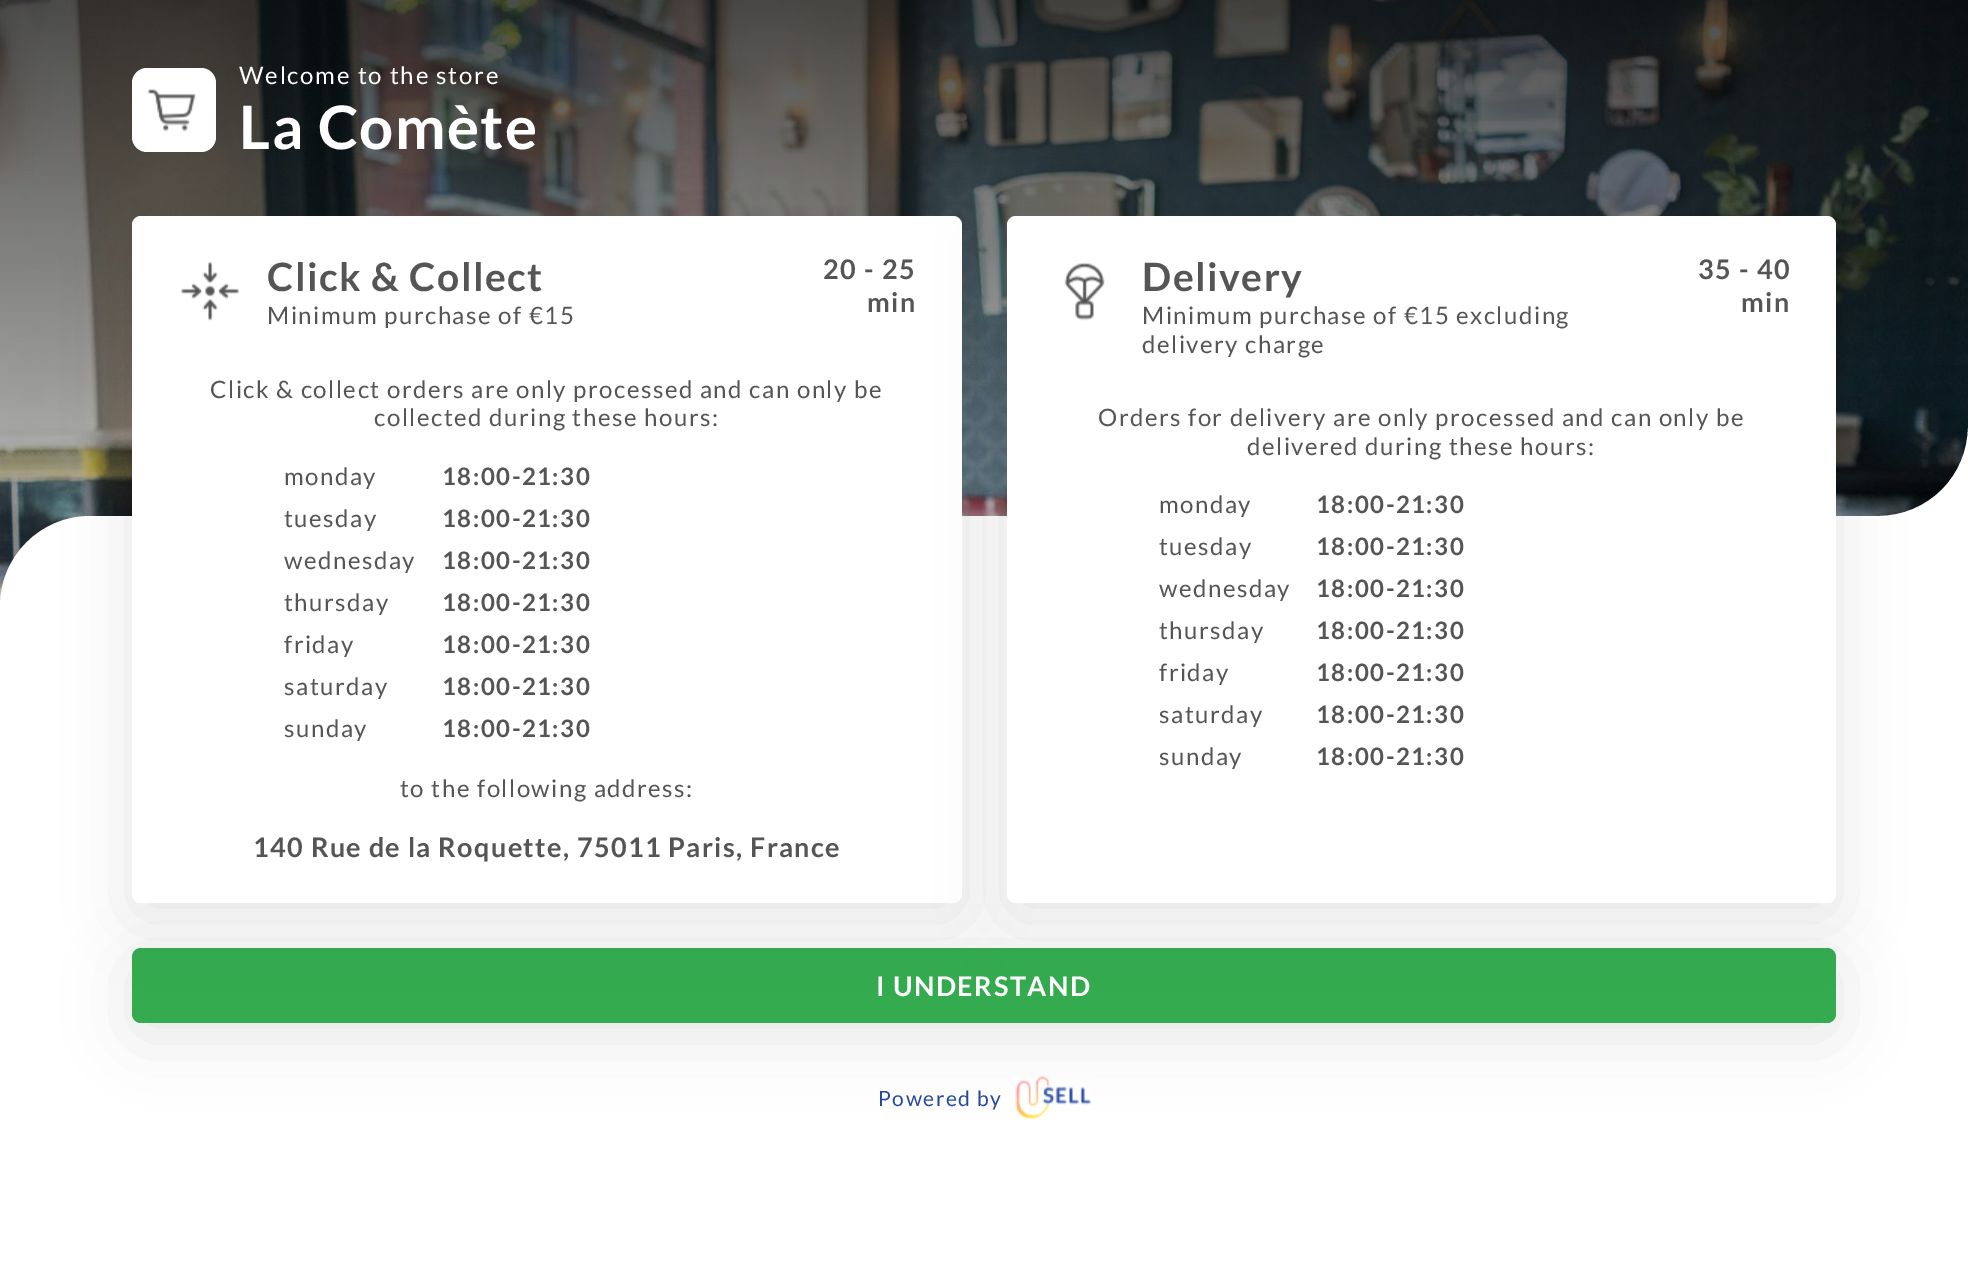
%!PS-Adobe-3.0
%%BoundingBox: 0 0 1968 1277
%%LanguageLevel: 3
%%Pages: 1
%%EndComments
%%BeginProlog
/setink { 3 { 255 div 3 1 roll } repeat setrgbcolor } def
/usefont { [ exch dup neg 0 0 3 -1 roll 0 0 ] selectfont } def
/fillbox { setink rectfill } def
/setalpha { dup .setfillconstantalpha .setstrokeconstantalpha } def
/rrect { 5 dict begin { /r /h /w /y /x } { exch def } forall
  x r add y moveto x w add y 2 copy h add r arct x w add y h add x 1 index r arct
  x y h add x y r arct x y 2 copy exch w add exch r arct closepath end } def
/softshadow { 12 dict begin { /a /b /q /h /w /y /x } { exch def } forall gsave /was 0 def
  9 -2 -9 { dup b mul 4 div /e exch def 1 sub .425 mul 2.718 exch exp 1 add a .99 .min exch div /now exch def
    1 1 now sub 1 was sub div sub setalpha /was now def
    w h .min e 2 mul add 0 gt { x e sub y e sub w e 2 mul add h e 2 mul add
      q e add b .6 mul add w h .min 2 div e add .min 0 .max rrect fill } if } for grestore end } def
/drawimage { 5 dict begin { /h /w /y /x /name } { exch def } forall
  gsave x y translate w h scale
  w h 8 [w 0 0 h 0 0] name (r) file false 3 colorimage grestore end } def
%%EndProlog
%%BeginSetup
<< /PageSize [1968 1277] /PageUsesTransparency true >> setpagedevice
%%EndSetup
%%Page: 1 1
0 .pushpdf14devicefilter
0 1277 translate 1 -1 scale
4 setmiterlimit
0 0 1968 1277 255 255 255 fillbox
(assets/img1.rgb) 0 0 1968 606 drawimage
132 68 84 84 15 rrect fill
(assets/img2.rgb) 148 89 48 43 drawimage
/Lato-Regular 24 usefont
239 84 moveto 1.75 0 (Welcome to the store) ashow
/Lato-Bold 60 usefont
239 149 moveto 1.5 0 (La Comète) ashow
90 516 moveto 1968 516 lineto 1968 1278 lineto 0 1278 lineto 0 606 lineto 0 556.5 40.5 516 90 516 curveto closepath fill
0 0 0 setink
132 962 1704 75 9 33 0.1 softshadow
52 171 79 setink
132 948 1704 75 9 rrect fill
0 0 0 setink
132 230 830 687 9 33 0.1 softshadow
255 255 255 setink
132 216 830 687 9 rrect fill
(assets/img3.rgb) 181 261 58 60 drawimage
/Lato-Bold 39 usefont
85 85 85 setink
267 291 moveto 1.5 0 (Click & Collect) ashow
/Lato-Regular 24 usefont
267 324 moveto 1.5 0 (Minimum purchase of €15) ashow
/Lato-Bold 27 usefont
823 279 moveto 1.5 0 (20 - 25) ashow
867 312 moveto 1.5 0 (min) ashow
/Lato-Regular 24 usefont
210 398 moveto 1.5 0 (Click & collect orders are only processed and can only be) ashow
374 426 moveto 1.5 0 (collected during these hours:) ashow
284 485 moveto 1.5 0 (monday) ashow
/Lato-Bold 24 usefont
442 485 moveto 1.5 0 (18:00-21:30) ashow
/Lato-Regular 24 usefont
284 527 moveto 1.5 0 (tuesday) ashow
/Lato-Bold 24 usefont
442 527 moveto 1.5 0 (18:00-21:30) ashow
/Lato-Regular 24 usefont
284 569 moveto 1.5 0 (wednesday) ashow
/Lato-Bold 24 usefont
442 569 moveto 1.5 0 (18:00-21:30) ashow
/Lato-Regular 24 usefont
284 611 moveto 1.5 0 (thursday) ashow
/Lato-Bold 24 usefont
442 611 moveto 1.5 0 (18:00-21:30) ashow
/Lato-Regular 24 usefont
284 653 moveto 1.5 0 (friday) ashow
/Lato-Bold 24 usefont
442 653 moveto 1.5 0 (18:00-21:30) ashow
/Lato-Regular 24 usefont
284 695 moveto 1.5 0 (saturday) ashow
/Lato-Bold 24 usefont
442 695 moveto 1.5 0 (18:00-21:30) ashow
/Lato-Regular 24 usefont
284 737 moveto 1.5 0 (sunday) ashow
/Lato-Bold 24 usefont
442 737 moveto 1.5 0 (18:00-21:30) ashow
/Lato-Regular 24 usefont
400 797 moveto 1.5 0 (to the following address:) ashow
/Lato-Bold 27 usefont
253 857 moveto 1.35 0 (140 Rue de la Roquette, 75011 Paris, France) ashow
255 255 255 setink
1878 516 moveto 1878 606 lineto 1928 606 1968 566 1968 516 curveto 1968 426 lineto 1968 476 1928 516 1878 516 curveto closepath fill
0 0 0 setink
1007 230 829 687 9 33 0.1 softshadow
255 255 255 setink
1007 216 829 687 9 rrect fill
(assets/img4.rgb) 1064 263 41 58 drawimage
/Lato-Bold 39 usefont
85 85 85 setink
1142 291 moveto 1.5 0 (Delivery) ashow
/Lato-Regular 24 usefont
1142 324 moveto 1.5 0 (Minimum purchase of €15 excluding) ashow
1142 353 moveto 1.5 0 (delivery charge) ashow
/Lato-Bold 27 usefont
1698 279 moveto 1.5 0 (35 - 40) ashow
1741 312 moveto 1.5 0 (min) ashow
/Lato-Regular 24 usefont
1098 426 moveto 1.5 0 (Orders for delivery are only processed and can only be) ashow
1247 455 moveto 1.5 0 (delivered during these hours:) ashow
1159 513 moveto 1.5 0 (monday) ashow
/Lato-Bold 24 usefont
1316 513 moveto 1.5 0 (18:00-21:30) ashow
/Lato-Regular 24 usefont
1159 555 moveto 1.5 0 (tuesday) ashow
/Lato-Bold 24 usefont
1316 555 moveto 1.5 0 (18:00-21:30) ashow
/Lato-Regular 24 usefont
1159 597 moveto 1.5 0 (wednesday) ashow
/Lato-Bold 24 usefont
1316 597 moveto 1.5 0 (18:00-21:30) ashow
/Lato-Regular 24 usefont
1159 639 moveto 1.5 0 (thursday) ashow
/Lato-Bold 24 usefont
1316 639 moveto 1.5 0 (18:00-21:30) ashow
/Lato-Regular 24 usefont
1159 681 moveto 1.5 0 (friday) ashow
/Lato-Bold 24 usefont
1316 681 moveto 1.5 0 (18:00-21:30) ashow
/Lato-Regular 24 usefont
1159 723 moveto 1.5 0 (saturday) ashow
/Lato-Bold 24 usefont
1316 723 moveto 1.5 0 (18:00-21:30) ashow
/Lato-Regular 24 usefont
1159 765 moveto 1.5 0 (sunday) ashow
/Lato-Bold 24 usefont
1316 765 moveto 1.5 0 (18:00-21:30) ashow
/Lato-Bold 27 usefont
255 255 255 setink
876 996 moveto 1.5 0 (I UNDERSTAND) ashow
/Lato-Regular 21 usefont
38 72 158 setink
878 1106 moveto 1.5 0 (Powered by) ashow
(assets/img5.rgb) 1015 1076 76 44 drawimage
.poppdf14devicefilter showpage
%%EOF
